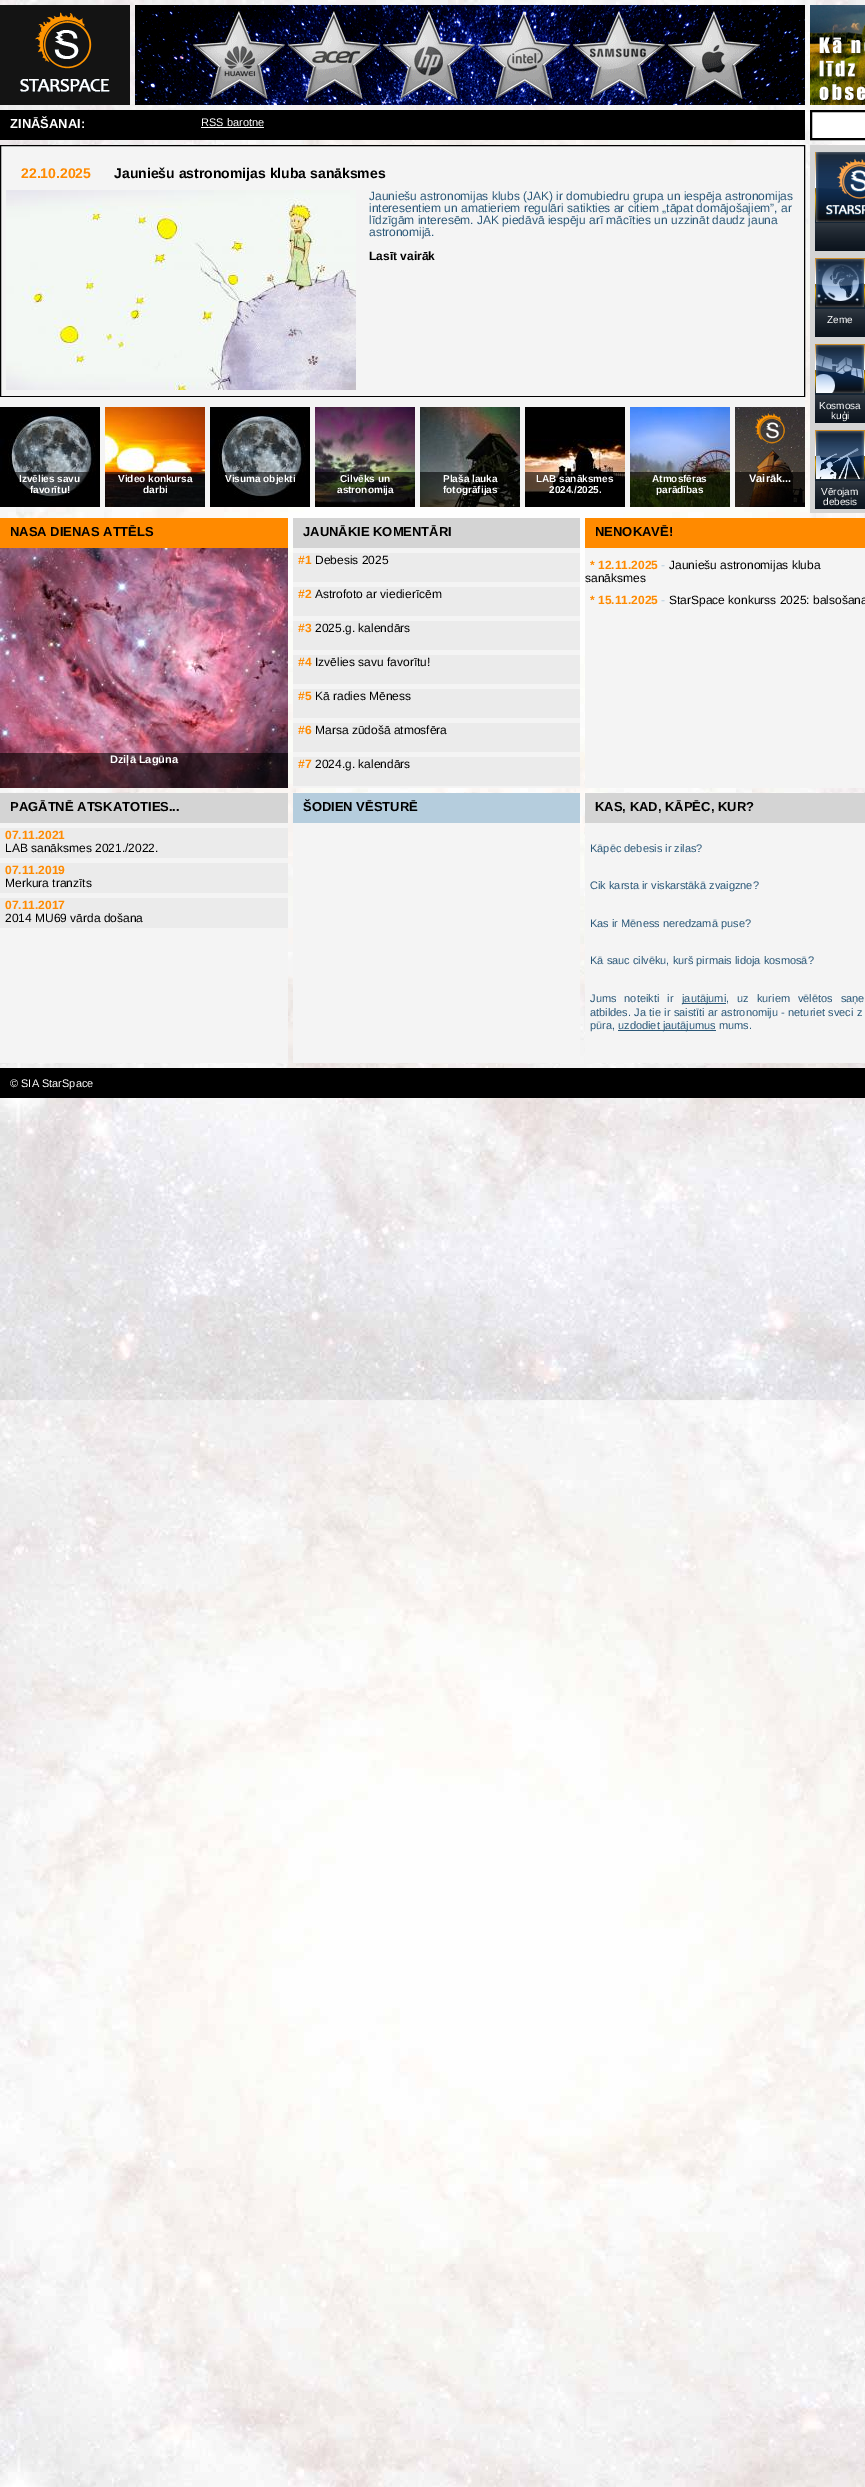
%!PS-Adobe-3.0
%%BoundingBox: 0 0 865 2487
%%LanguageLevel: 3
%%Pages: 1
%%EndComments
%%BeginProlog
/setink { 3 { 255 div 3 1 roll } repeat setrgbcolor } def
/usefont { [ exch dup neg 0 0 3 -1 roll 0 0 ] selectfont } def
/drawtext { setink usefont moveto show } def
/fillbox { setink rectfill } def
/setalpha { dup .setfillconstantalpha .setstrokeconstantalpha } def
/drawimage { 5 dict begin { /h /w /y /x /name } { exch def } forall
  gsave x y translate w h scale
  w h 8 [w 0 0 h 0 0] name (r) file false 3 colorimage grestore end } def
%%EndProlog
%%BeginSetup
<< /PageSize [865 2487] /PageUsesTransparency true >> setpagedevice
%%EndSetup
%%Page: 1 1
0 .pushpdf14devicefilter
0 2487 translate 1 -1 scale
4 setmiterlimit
0 0 865 2487 255 255 255 fillbox
(assets/img1.rgb) 0 0 865 2487 drawimage
(assets/img2.rgb) 0 5 130 100 drawimage
(assets/img3.rgb) 135 5 670 100 drawimage
(assets/img4.rgb) 810 5 55 100 drawimage
0 110 805 30 0 0 0 fillbox
(ZINĀŠANAI:) 10 128 /LiberationSans-Bold 13 255 255 255 drawtext
(RSS barotne) 201 126 /LiberationSans-Regular 11 255 255 255 drawtext
201 127 63 1 255 255 255 fillbox
811 111 moveto 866 111 lineto 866 139 lineto 811 139 lineto closepath gsave fill grestore
0 0 0 setink
2 setlinewidth
stroke
244 244 244 setink
0.5 145.5 moveto 804.5 145.5 lineto 804.5 396.5 lineto 0.5 396.5 lineto closepath gsave fill grestore
0 0 0 setink
1 setlinewidth
stroke
(22.10.2025) 21 178 /LiberationSans-Bold 14 255 138 0 drawtext
(Jauniešu astronomijas kluba sanāksmes) 114 178 /LiberationSans-Bold 14 0 0 0 drawtext
(assets/img5.rgb) 6 190 350 200 drawimage
(Jauniešu astronomijas klubs \(JAK\) ir domubiedru grupa un iespēja astronomijas) 369 200 /LiberationSans-Regular 12 43 88 120 drawtext
(interesentiem un amatieriem regulāri satikties ar citiem „tāpat domājošajiem”, ar) 369 212 /LiberationSans-Regular 12 43 88 120 drawtext
(līdzīgām interesēm. JAK piedāvā iespēju arī mācīties un uzzināt daudz jauna) 369 224 /LiberationSans-Regular 12 43 88 120 drawtext
(astronomijā.) 369 236 /LiberationSans-Regular 12 43 88 120 drawtext
(Lasīt vairāk) 369 260 /LiberationSans-Bold 12 0 0 0 drawtext
0 397 735 110 244 244 244 fillbox
0 407 100 100 0 0 0 fillbox
(assets/img6.rgb) 0 407 96 96 drawimage
0.6 setalpha
8 472 88 31 0 0 0 fillbox
1 setalpha
(Izvēlies savu) 19 482 /LiberationSans-Bold 10 255 255 255 drawtext
(favorītu!) 30 493 /LiberationSans-Bold 10 255 255 255 drawtext
(assets/img7.rgb) 105 407 100 100 drawimage
0.6 setalpha
105 472 100 35 0 0 0 fillbox
1 setalpha
(Video konkursa) 118 482 /LiberationSans-Bold 10 255 255 255 drawtext
(darbi) 143 493 /LiberationSans-Bold 10 255 255 255 drawtext
210 407 100 100 0 0 0 fillbox
(assets/img6.rgb) 210 407 96 96 drawimage
0.6 setalpha
218 472 88 31 0 0 0 fillbox
1 setalpha
(Visuma objekti) 225 482 /LiberationSans-Bold 10 255 255 255 drawtext
(assets/img8.rgb) 315 407 100 100 drawimage
0.6 setalpha
315 472 100 35 0 0 0 fillbox
1 setalpha
(Cilvēks un) 340 482 /LiberationSans-Bold 10 255 255 255 drawtext
(astronomija) 337 493 /LiberationSans-Bold 10 255 255 255 drawtext
(assets/img9.rgb) 420 407 100 100 drawimage
0.6 setalpha
420 472 100 35 0 0 0 fillbox
1 setalpha
(Plaša lauka) 443 482 /LiberationSans-Bold 10 255 255 255 drawtext
(fotogrāfijas) 443 493 /LiberationSans-Bold 10 255 255 255 drawtext
525 407 100 100 0 0 0 fillbox
(assets/img10.rgb) 525 439 100 59 drawimage
0.6 setalpha
525 472 100 26 0 0 0 fillbox
1 setalpha
(LAB sanāksmes) 536 482 /LiberationSans-Bold 10 255 255 255 drawtext
(2024./2025.) 549 493 /LiberationSans-Bold 10 255 255 255 drawtext
(assets/img11.rgb) 630 407 100 100 drawimage
0.6 setalpha
630 472 100 35 0 0 0 fillbox
1 setalpha
(Atmosfēras) 652 482 /LiberationSans-Bold 10 255 255 255 drawtext
(parādības) 656 493 /LiberationSans-Bold 10 255 255 255 drawtext
735 397 70 10 244 244 244 fillbox
(assets/img12.rgb) 735 407 70 100 drawimage
0.6 setalpha
735 472 70 35 0 0 0 fillbox
1 setalpha
(Vairāk...) 749 482 /LiberationSans-Bold 11 255 255 255 drawtext
810 145 55 368 212 212 212 fillbox
(assets/img13.rgb) 815 222 50 29 drawimage
(assets/img14.rgb) 815 152 50 70 drawimage
(assets/img13.rgb) 815 308 50 29 drawimage
(assets/img15.rgb) 815 258 50 50 drawimage
(Zeme) 827 323 /LiberationSans-Regular 10 255 255 255 drawtext
(assets/img13.rgb) 815 394 50 29 drawimage
(assets/img16.rgb) 815 344 50 50 drawimage
(Kosmosa) 819 409 /LiberationSans-Regular 10 255 255 255 drawtext
(kuģi) 831 419 /LiberationSans-Regular 10 255 255 255 drawtext
(assets/img13.rgb) 815 480 50 29 drawimage
(assets/img17.rgb) 815 430 50 50 drawimage
(Vērojam) 821 495 /LiberationSans-Regular 10 255 255 255 drawtext
(debesis) 823 505 /LiberationSans-Regular 10 255 255 255 drawtext
0 518 288 30 255 138 0 fillbox
(NASA DIENAS ATTĒLS) 10 536 /LiberationSans-Bold 13 0 0 0 drawtext
(assets/img18.rgb) 0 548 288 240 drawimage
0.6 setalpha
0 753 288 35 0 0 0 fillbox
1 setalpha
(Dziļā Lagūna) 110 763 /LiberationSans-Bold 11 255 255 255 drawtext
293 518 287 30 212 212 212 fillbox
(JAUNĀKIE KOMENTĀRI) 303 536 /LiberationSans-Bold 13 0 0 0 drawtext
293 548 287 240 244 244 244 fillbox
293 553 287 29 235 235 235 fillbox
(#1) 298 564 /LiberationSans-Bold 12 255 138 0 drawtext
(Debesis 2025) 315 564 /LiberationSans-Regular 12 0 0 0 drawtext
293 587 287 29 235 235 235 fillbox
(#2) 298 598 /LiberationSans-Bold 12 255 138 0 drawtext
(Astrofoto ar viedierīcēm) 315 598 /LiberationSans-Regular 12 0 0 0 drawtext
293 621 287 29 235 235 235 fillbox
(#3) 298 632 /LiberationSans-Bold 12 255 138 0 drawtext
(2025.g. kalendārs) 315 632 /LiberationSans-Regular 12 0 0 0 drawtext
293 655 287 29 235 235 235 fillbox
(#4) 298 666 /LiberationSans-Bold 12 255 138 0 drawtext
(Izvēlies savu favorītu!) 315 666 /LiberationSans-Regular 12 0 0 0 drawtext
293 689 287 29 235 235 235 fillbox
(#5) 298 700 /LiberationSans-Bold 12 255 138 0 drawtext
(Kā radies Mēness) 315 700 /LiberationSans-Regular 12 0 0 0 drawtext
293 723 287 29 235 235 235 fillbox
(#6) 298 734 /LiberationSans-Bold 12 255 138 0 drawtext
(Marsa zūdošā atmosfēra) 315 734 /LiberationSans-Regular 12 0 0 0 drawtext
293 757 287 29 235 235 235 fillbox
(#7) 298 768 /LiberationSans-Bold 12 255 138 0 drawtext
(2024.g. kalendārs) 315 768 /LiberationSans-Regular 12 0 0 0 drawtext
585 518 280 30 255 138 0 fillbox
(NENOKAVĒ!) 595 536 /LiberationSans-Bold 13 0 0 0 drawtext
585 548 280 240 244 244 244 fillbox
(* 12.11.2025) 590 569 /LiberationSans-Bold 12 255 138 0 drawtext
(-) 661 569 /LiberationSans-Regular 12 181 205 221 drawtext
(Jauniešu astronomijas kluba) 669 569 /LiberationSans-Regular 12 0 0 0 drawtext
(sanāksmes) 585 582 /LiberationSans-Regular 12 0 0 0 drawtext
(* 15.11.2025) 590 604 /LiberationSans-Bold 12 255 138 0 drawtext
(-) 661 604 /LiberationSans-Regular 12 181 205 221 drawtext
(StarSpace konkurss 2025: balsošana) 669 604 /LiberationSans-Regular 12 0 0 0 drawtext
0 823 288 240 244 244 244 fillbox
0 793 288 30 212 212 212 fillbox
(PAGĀTNĒ ATSKATOTIES...) 10 811 /LiberationSans-Bold 13 0 0 0 drawtext
0 828 288 30 235 235 235 fillbox
(07.11.2021) 5 839 /LiberationSans-Bold 12 255 138 0 drawtext
(LAB sanāksmes 2021./2022.) 5 852 /LiberationSans-Regular 12 0 0 0 drawtext
0 863 288 30 235 235 235 fillbox
(07.11.2019) 5 874 /LiberationSans-Bold 12 255 138 0 drawtext
(Merkura tranzīts) 5 887 /LiberationSans-Regular 12 0 0 0 drawtext
0 898 288 30 235 235 235 fillbox
(07.11.2017) 5 909 /LiberationSans-Bold 12 255 138 0 drawtext
(2014 MU69 vārda došana) 5 922 /LiberationSans-Regular 12 0 0 0 drawtext
293 823 287 240 244 244 244 fillbox
293 793 287 30 181 205 221 fillbox
(ŠODIEN VĒSTURĒ) 303 811 /LiberationSans-Bold 13 0 0 0 drawtext
585 823 280 240 244 244 244 fillbox
585 793 280 30 212 212 212 fillbox
(KAS, KAD, KĀPĒC, KUR?) 595 811 /LiberationSans-Bold 13 0 0 0 drawtext
(Kāpēc debesis ir zilas?) 590 852 /LiberationSans-Regular 11 43 88 120 drawtext
(Cik karsta ir viskarstākā zvaigzne?) 590 889 /LiberationSans-Regular 11 43 88 120 drawtext
(Kas ir Mēness neredzamā puse?) 590 927 /LiberationSans-Regular 11 43 88 120 drawtext
(Kā sauc cilvēku, kurš pirmais lidoja kosmosā?) 590 964 /LiberationSans-Regular 11 43 88 120 drawtext
590 1002 moveto 5 0 32 (Jums noteikti ir) widthshow
682 1003 44 1 43 88 120 fillbox
(jautājumi) 682 1002 /LiberationSans-Regular 11 43 88 120 drawtext
726 1002 moveto 5 0 32 (, uz kuriem vēlētos saņe) widthshow
590 1016 moveto 0.25 0 32 (atbildes. Ja tie ir saistīti ar astronomiju - neturiet sveci z) widthshow
(pūra,) 590 1029 /LiberationSans-Regular 11 43 88 120 drawtext
618 1030 98 1 43 88 120 fillbox
(uzdodiet jautājumus mums.) 618 1029 /LiberationSans-Regular 11 43 88 120 drawtext
0 1068 865 30 0 0 0 fillbox
(© SIA StarSpace) 10 1087 /LiberationSans-Regular 11 255 255 255 drawtext
.poppdf14devicefilter showpage
%%EOF
